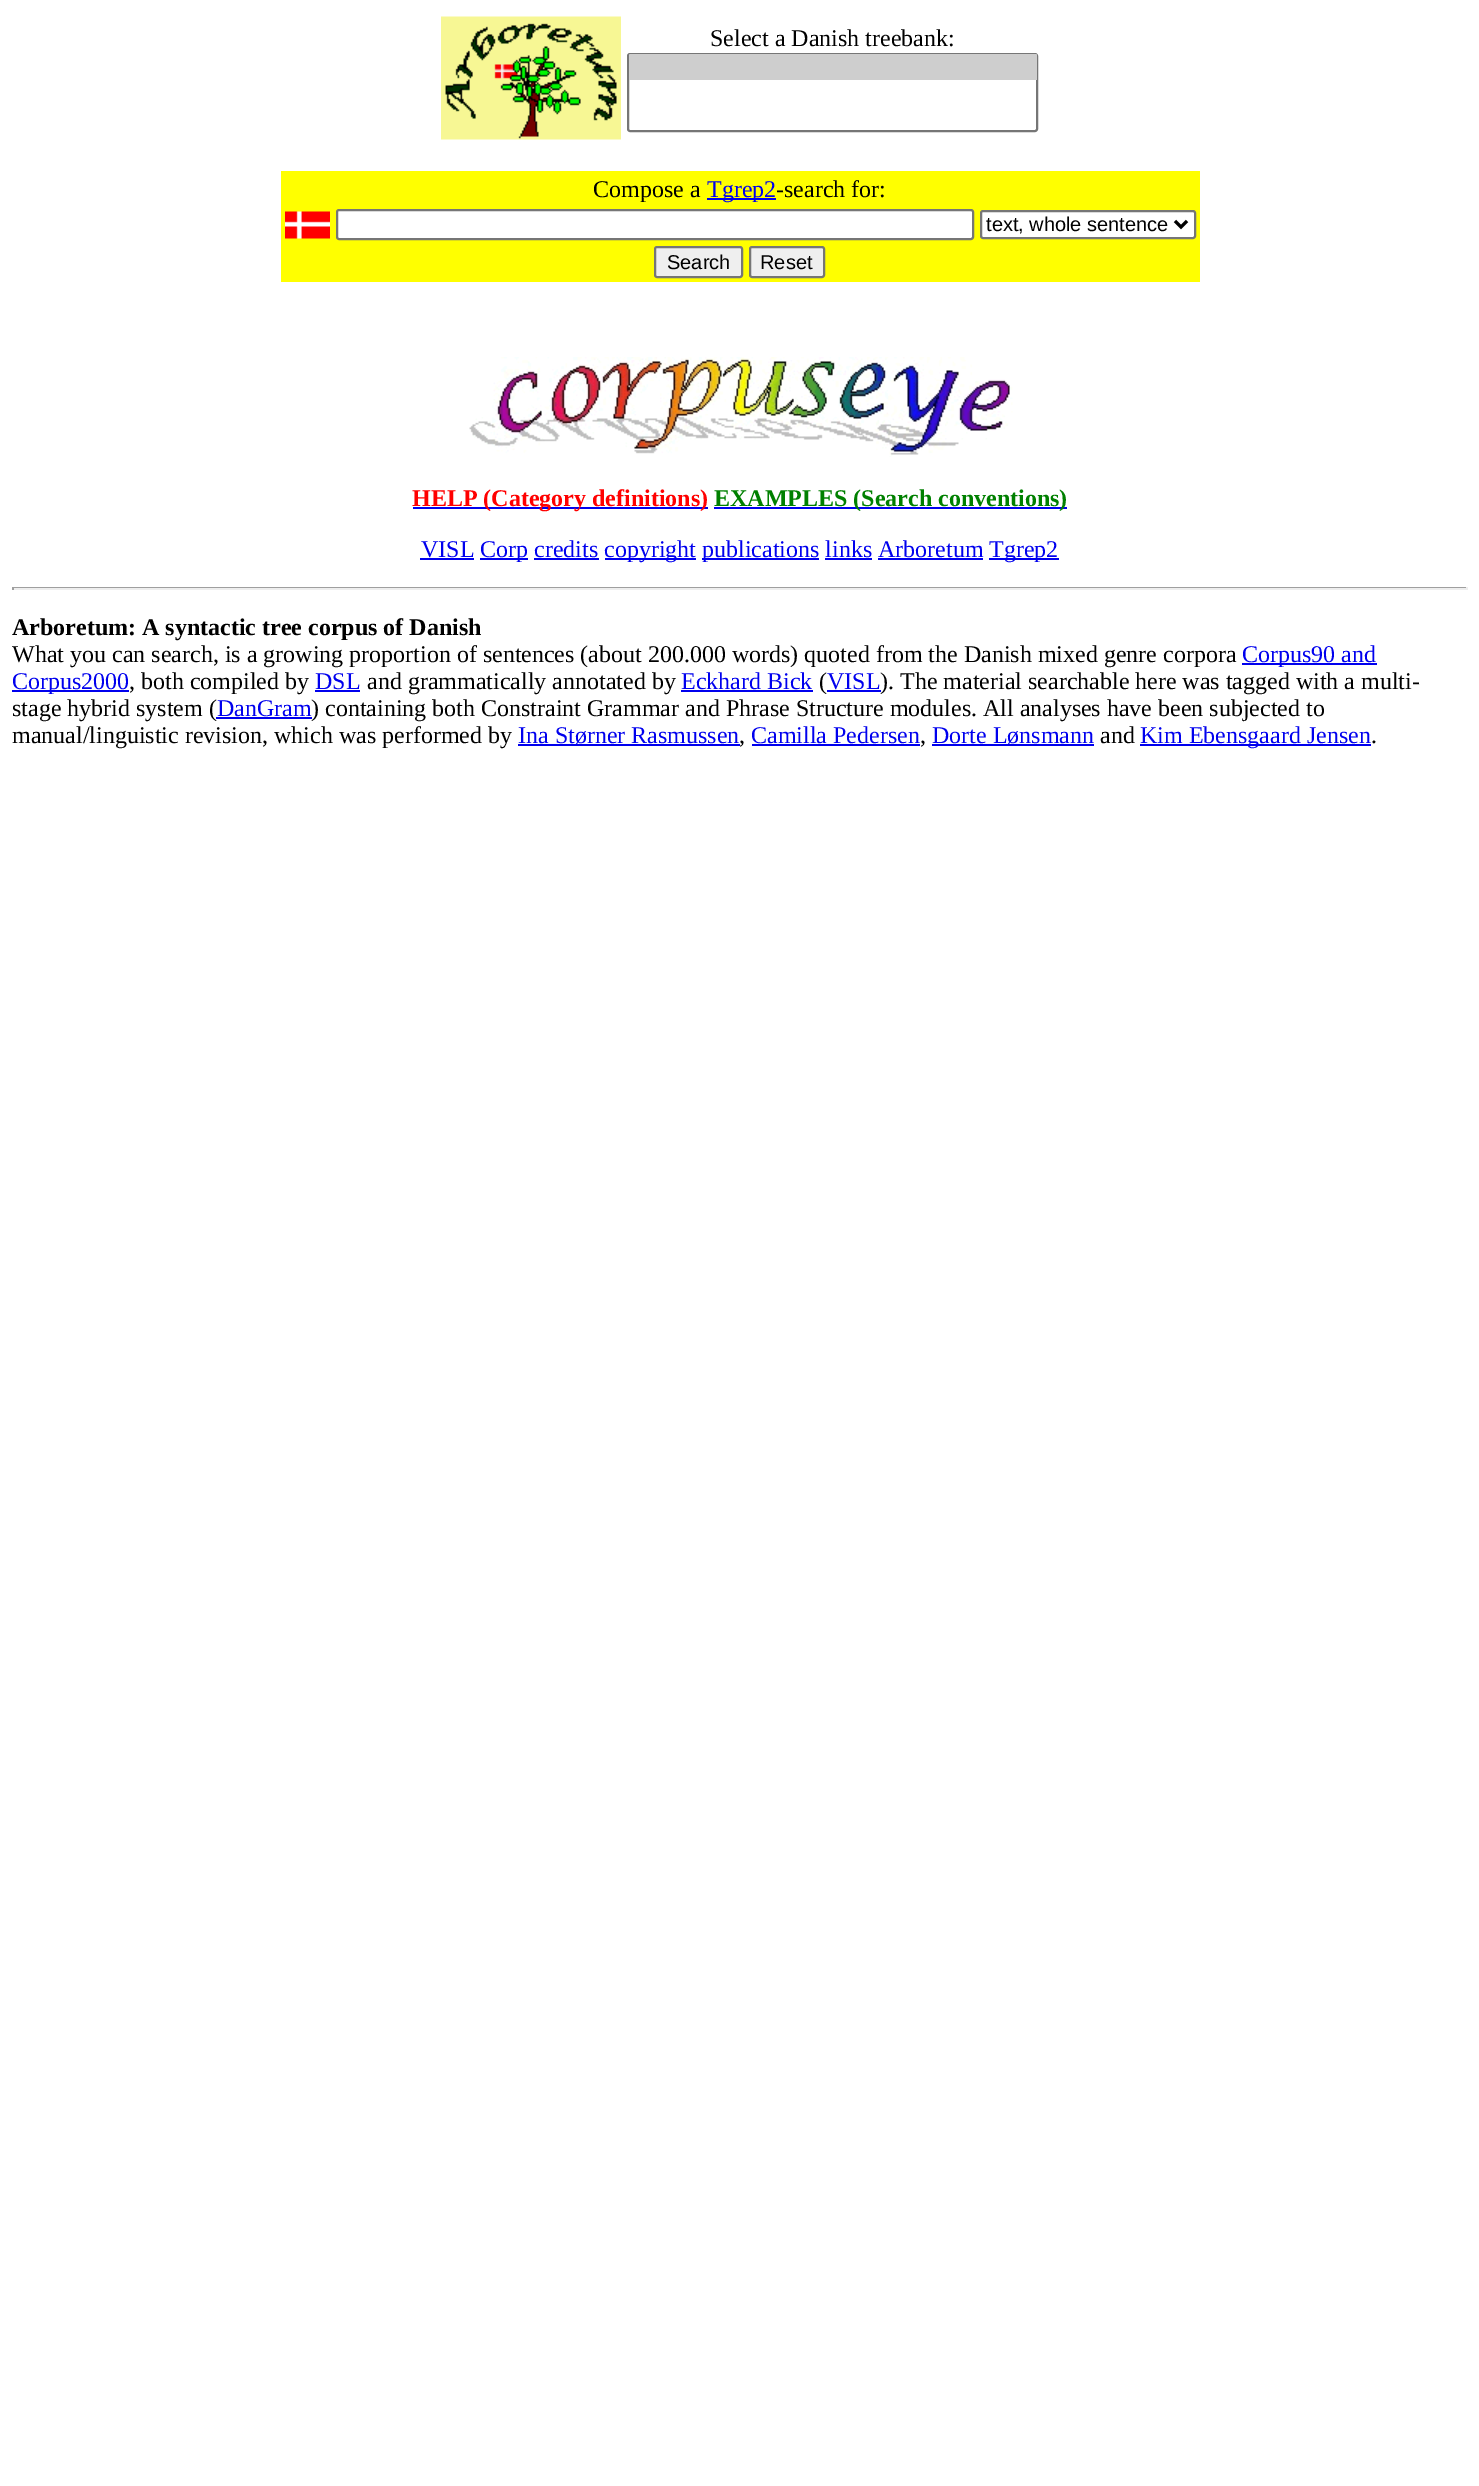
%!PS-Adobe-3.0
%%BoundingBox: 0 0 1479 2486
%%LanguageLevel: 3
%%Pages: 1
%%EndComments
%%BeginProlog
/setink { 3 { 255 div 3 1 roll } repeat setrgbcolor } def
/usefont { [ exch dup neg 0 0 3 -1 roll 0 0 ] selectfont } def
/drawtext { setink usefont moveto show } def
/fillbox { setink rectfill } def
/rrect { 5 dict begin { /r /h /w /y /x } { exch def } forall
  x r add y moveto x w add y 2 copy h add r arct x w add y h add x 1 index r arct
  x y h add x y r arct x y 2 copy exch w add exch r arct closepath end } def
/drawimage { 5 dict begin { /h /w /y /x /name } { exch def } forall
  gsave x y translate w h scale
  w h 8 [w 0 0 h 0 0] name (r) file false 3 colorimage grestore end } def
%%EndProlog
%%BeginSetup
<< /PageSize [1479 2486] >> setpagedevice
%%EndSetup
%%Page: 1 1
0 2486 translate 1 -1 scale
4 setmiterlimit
0 0 1479 2486 255 255 255 fillbox
(assets/img1.rgb) 441 16 180 124 drawimage
(Select a Danish treebank:) 710 46 /LiberationSerif-Regular 24 0 0 0 drawtext
118 118 118 setink
2 setlinewidth
628 54 409 77 2 rrect stroke
206 206 206 setink
630.5 54 moveto 1035.5 54 lineto 1036.5 54 1037 54.5 1037 55.5 curveto 1037 80 lineto 629 80 lineto 629 55.5 lineto 629 54.5 629.5 54 630.5 54 curveto closepath fill
281 171 919 111 255 255 0 fillbox
(Compose a) 593 197 /LiberationSerif-Regular 24 0 0 0 drawtext
707 198 69 2 0 0 238 fillbox
(Tgrep2) 707 197 /LiberationSerif-Regular 24 0 0 238 drawtext
(-search for:) 776 197 /LiberationSerif-Regular 24 0 0 0 drawtext
(assets/img2.rgb) 285 211 45 28 drawimage
255 255 255 setink
337 210 636 29 2 rrect gsave fill grestore
118 118 118 setink
stroke
255 255 255 setink
981 211 214 27 2 rrect gsave fill grestore
118 118 118 setink
stroke
0 0 0 setink
3 setlinewidth
1175 221 moveto 1181 227 lineto 1187 221 lineto stroke
(text, whole sentence) 986 231 /LiberationSans-Regular 20 0 0 0 drawtext
239 239 239 setink
655 247 87 30 2 rrect gsave fill grestore
118 118 118 setink
2 setlinewidth
stroke
(Search) 667 269 /LiberationSans-Regular 20 0 0 0 drawtext
239 239 239 setink
750 247 74 30 2 rrect gsave fill grestore
118 118 118 setink
stroke
(Reset) 760 269 /LiberationSans-Regular 20 0 0 0 drawtext
(assets/img3.rgb) 469 357 544 100 drawimage
413 507 295 2 0 0 238 fillbox
(HELP \(Category definitions\)) 412 506 /LiberationSerif-Bold 24 255 0 0 drawtext
714 507 353 2 0 0 238 fillbox
(EXAMPLES \(Search conventions\)) 714 506 /LiberationSerif-Bold 24 0 128 0 drawtext
(VISL) 421 557 /LiberationSerif-Regular 24 0 0 238 drawtext
420 558 54 2 0 0 238 fillbox
480 558 48 2 0 0 238 fillbox
(Corp credits) 480 557 /LiberationSerif-Regular 24 0 0 238 drawtext
605 558 91 2 0 0 238 fillbox
(copyright) 604 557 /LiberationSerif-Regular 24 0 0 238 drawtext
702 558 117 2 0 0 238 fillbox
(publications links Arboretum) 702 557 /LiberationSerif-Regular 24 0 0 238 drawtext
989 558 70 2 0 0 238 fillbox
(Tgrep2) 989 557 /LiberationSerif-Regular 24 0 0 238 drawtext
534 558 65 2 0 0 238 fillbox
825 558 47 2 0 0 238 fillbox
878 558 105 2 0 0 238 fillbox
12 587 1455 1 159 159 159 fillbox
1466 587 2 3 238 238 238 fillbox
12 588 1455 2 238 238 238 fillbox
12 587 2 3 159 159 159 fillbox
(Arboretum: A syntactic tree corpus of Danish) 12 635 /LiberationSerif-Bold 24 0 0 0 drawtext
(What you can search, is a growing proportion of sentences \(about 200.000 words\) quoted from the Danish mixed genre corpora) 12 662 /LiberationSerif-Regular 24 0 0 0 drawtext
1242 663 135 2 0 0 238 fillbox
(Corpus90 and) 1242 662 /LiberationSerif-Regular 24 0 0 238 drawtext
12 690 117 2 0 0 238 fillbox
(Corpus2000) 12 689 /LiberationSerif-Regular 24 0 0 238 drawtext
(, both compiled by) 129 689 /LiberationSerif-Regular 24 0 0 0 drawtext
(DSL) 315 689 /LiberationSerif-Regular 24 0 0 238 drawtext
315 690 45 2 0 0 238 fillbox
(and grammatically annotated by) 367 689 /LiberationSerif-Regular 24 0 0 0 drawtext
(Eckhard Bick) 681 689 /LiberationSerif-Regular 24 0 0 238 drawtext
681 690 132 2 0 0 238 fillbox
(\() 819 689 /LiberationSerif-Regular 24 0 0 0 drawtext
(VISL) 827 689 /LiberationSerif-Regular 24 0 0 238 drawtext
827 690 54 2 0 0 238 fillbox
(\). The material searchable here was tagged with a multi-) 880 689 /LiberationSerif-Regular 24 0 0 0 drawtext
(stage hybrid system \() 12 716 /LiberationSerif-Regular 24 0 0 0 drawtext
(DanGram) 217 716 /LiberationSerif-Regular 24 0 0 238 drawtext
216 717 96 2 0 0 238 fillbox
(\) containing both Constraint Grammar and Phrase Structure modules. All analyses have been subjected to) 311 716 /LiberationSerif-Regular 24 0 0 0 drawtext
(manual/linguistic revision, which was performed by) 12 743 /LiberationSerif-Regular 24 0 0 0 drawtext
(Ina Størner Rasmussen) 518 743 /LiberationSerif-Regular 24 0 0 238 drawtext
518 744 222 2 0 0 238 fillbox
(,) 739 743 /LiberationSerif-Regular 24 0 0 0 drawtext
(Camilla Pedersen) 751 743 /LiberationSerif-Regular 24 0 0 238 drawtext
752 744 168 2 0 0 238 fillbox
(,) 920 743 /LiberationSerif-Regular 24 0 0 0 drawtext
(Dorte Lønsmann) 932 743 /LiberationSerif-Regular 24 0 0 238 drawtext
932 744 162 2 0 0 238 fillbox
(and) 1100 743 /LiberationSerif-Regular 24 0 0 0 drawtext
1140 744 231 2 0 0 238 fillbox
(Kim Ebensgaard Jensen) 1140 743 /LiberationSerif-Regular 24 0 0 238 drawtext
(.) 1371 743 /LiberationSerif-Regular 24 0 0 0 drawtext
showpage
%%EOF
